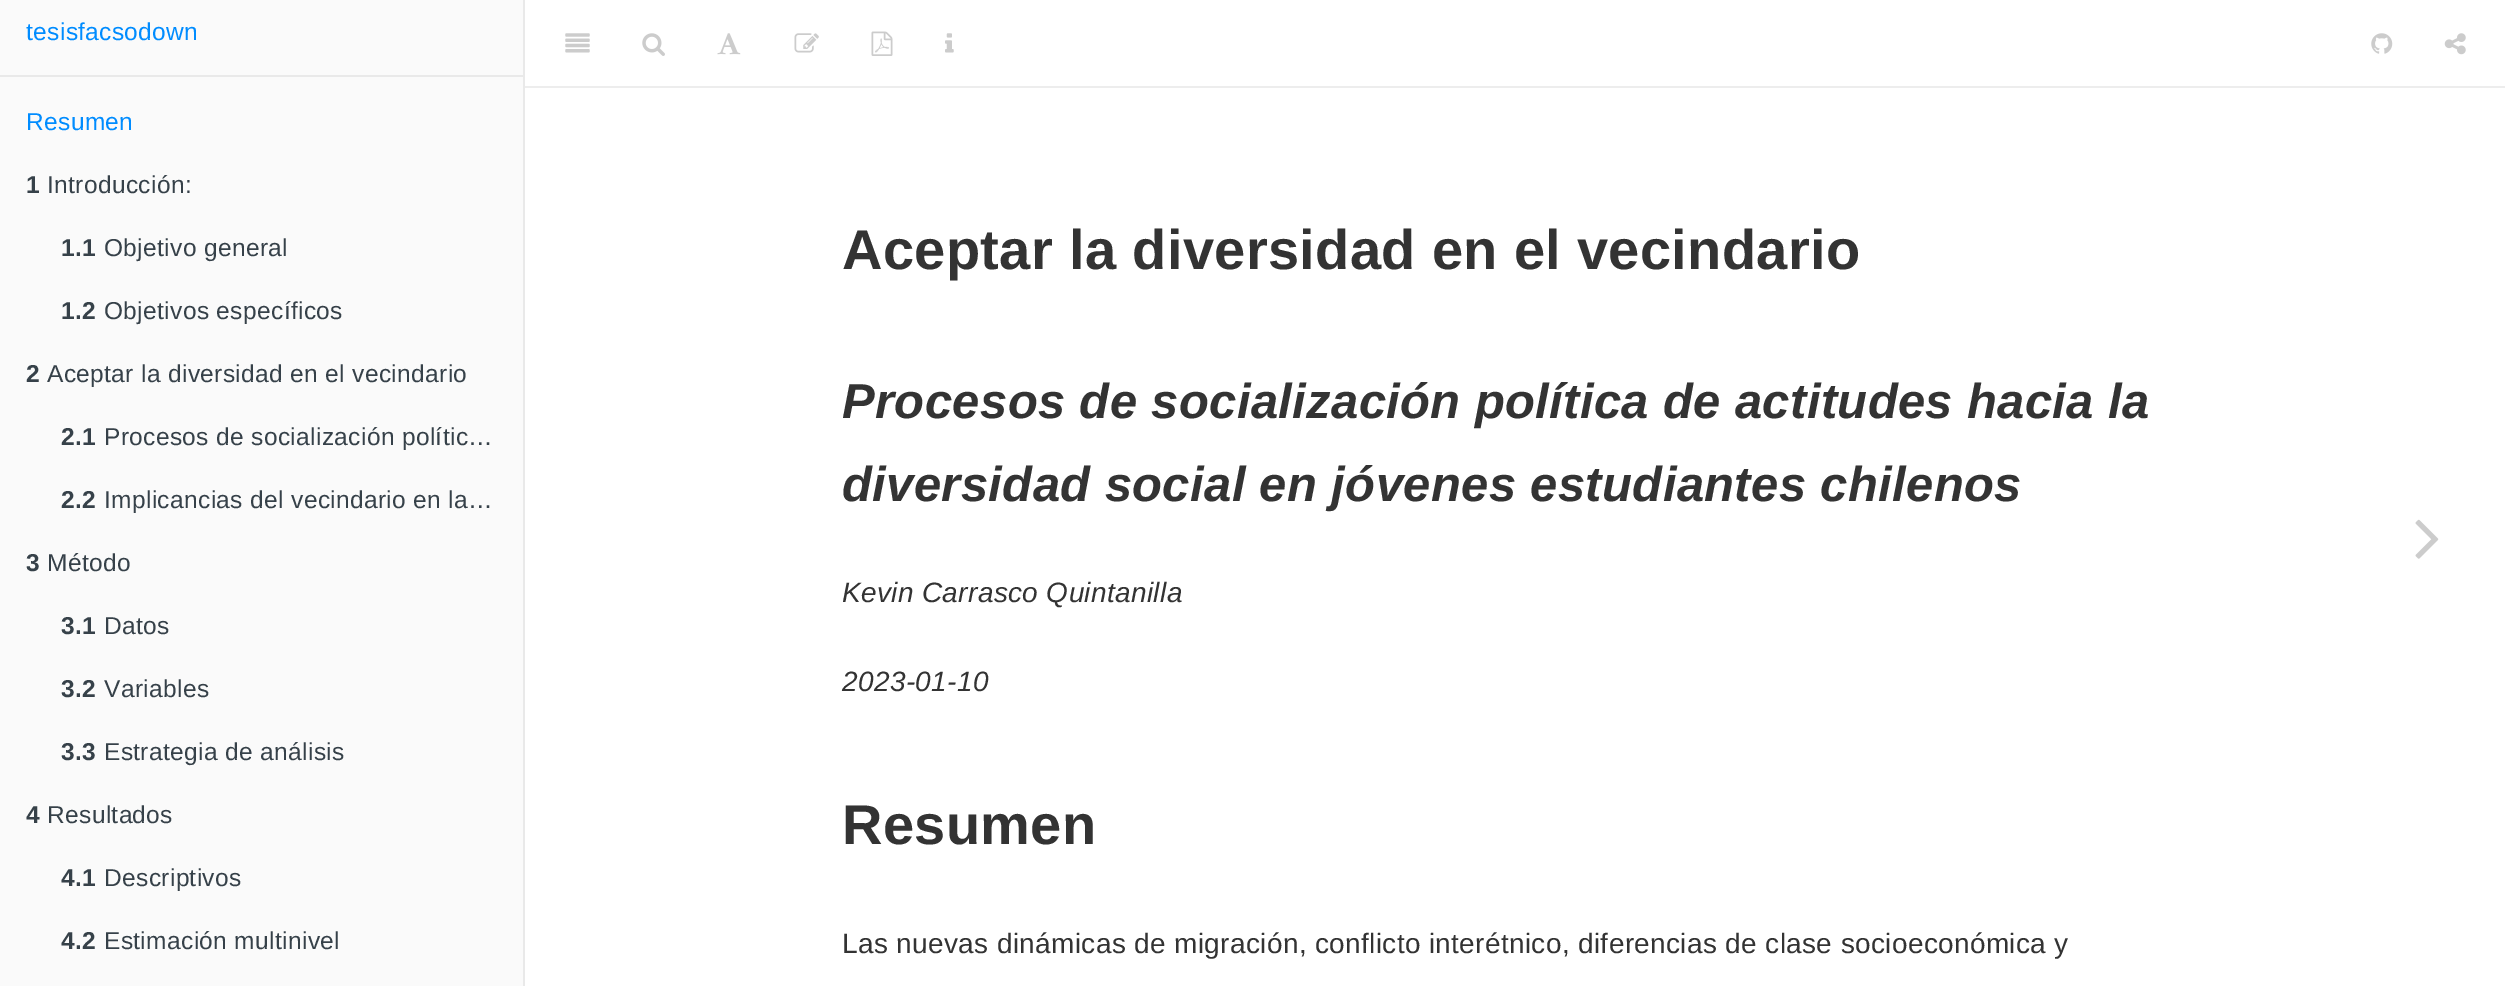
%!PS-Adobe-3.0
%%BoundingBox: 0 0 2505 986
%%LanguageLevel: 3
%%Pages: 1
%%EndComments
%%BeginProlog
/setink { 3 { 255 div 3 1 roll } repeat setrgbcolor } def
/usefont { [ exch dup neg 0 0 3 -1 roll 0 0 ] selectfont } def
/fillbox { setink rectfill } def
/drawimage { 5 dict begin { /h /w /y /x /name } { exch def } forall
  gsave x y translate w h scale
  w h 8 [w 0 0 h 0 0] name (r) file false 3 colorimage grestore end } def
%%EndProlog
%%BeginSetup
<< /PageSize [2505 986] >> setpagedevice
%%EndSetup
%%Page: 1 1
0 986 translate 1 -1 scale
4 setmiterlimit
0 0 2505 986 255 255 255 fillbox
0 0 523 986 250 250 250 fillbox
523 0 2 986 233 233 233 fillbox
/LiberationSans-Regular 24.5 usefont
0 140 255 setink
26 40 moveto 0.35 0 (tesisfacsodown) ashow
0 75 523 2 233 233 233 fillbox
0 140 255 setink
26 130 moveto 0.35 0 (Resumen) ashow
/LiberationSans-Bold 24.5 usefont
54 65 73 setink
26 193 moveto 0.35 0 (1) ashow
/LiberationSans-Regular 24.5 usefont
47 193 moveto 0.35 0 (Introducción:) ashow
/LiberationSans-Bold 24.5 usefont
61 256 moveto 0.35 0 (1.1) ashow
/LiberationSans-Regular 24.5 usefont
104 256 moveto 0.35 0 (Objetivo general) ashow
/LiberationSans-Bold 24.5 usefont
61 319 moveto 0.35 0 (1.2) ashow
/LiberationSans-Regular 24.5 usefont
104 319 moveto 0.35 0 (Objetivos específicos) ashow
/LiberationSans-Bold 24.5 usefont
26 382 moveto 0.35 0 (2) ashow
/LiberationSans-Regular 24.5 usefont
47 382 moveto 0.35 0 (Aceptar la diversidad en el vecindario) ashow
/LiberationSans-Bold 24.5 usefont
61 445 moveto 0.35 0 (2.1) ashow
/LiberationSans-Regular 24.5 usefont
104 445 moveto 0.35 0 (Procesos de socialización polític…) ashow
/LiberationSans-Bold 24.5 usefont
61 508 moveto 0.35 0 (2.2) ashow
/LiberationSans-Regular 24.5 usefont
104 508 moveto 0.35 0 (Implicancias del vecindario en la…) ashow
/LiberationSans-Bold 24.5 usefont
26 571 moveto 0.35 0 (3) ashow
/LiberationSans-Regular 24.5 usefont
47 571 moveto 0.35 0 (Método) ashow
/LiberationSans-Bold 24.5 usefont
61 634 moveto 0.35 0 (3.1) ashow
/LiberationSans-Regular 24.5 usefont
104 634 moveto 0.35 0 (Datos) ashow
/LiberationSans-Bold 24.5 usefont
61 697 moveto 0.35 0 (3.2) ashow
/LiberationSans-Regular 24.5 usefont
104 697 moveto 0.35 0 (Variables) ashow
/LiberationSans-Bold 24.5 usefont
61 760 moveto 0.35 0 (3.3) ashow
/LiberationSans-Regular 24.5 usefont
104 760 moveto 0.35 0 (Estrategia de análisis) ashow
/LiberationSans-Bold 24.5 usefont
26 823 moveto 0.35 0 (4) ashow
/LiberationSans-Regular 24.5 usefont
47 823 moveto 0.35 0 (Resultados) ashow
/LiberationSans-Bold 24.5 usefont
61 886 moveto 0.35 0 (4.1) ashow
/LiberationSans-Regular 24.5 usefont
104 886 moveto 0.35 0 (Descriptivos) ashow
/LiberationSans-Bold 24.5 usefont
61 949 moveto 0.35 0 (4.2) ashow
/LiberationSans-Regular 24.5 usefont
104 949 moveto 0.35 0 (Estimación multinivel) ashow
525 86 1980 2 237 237 237 fillbox
(assets/img1.rgb) 565 33 25 20 drawimage
(assets/img2.rgb) 642 33 23 23 drawimage
(assets/img3.rgb) 717 33 24 22 drawimage
(assets/img4.rgb) 794 33 25 20 drawimage
(assets/img5.rgb) 871 31 22 25 drawimage
(assets/img6.rgb) 945 33 9 20 drawimage
(assets/img7.rgb) 2371 33 22 21 drawimage
(assets/img8.rgb) 2444 33 22 22 drawimage
/LiberationSans-Bold 56 usefont
51 51 51 setink
842 269 moveto 0.35 0 (Aceptar la diversidad en el vecindario) ashow
/LiberationSans-BoldItalic 49 usefont
842 418 moveto 0.35 0 (Procesos de socialización política de actitudes hacia la) ashow
842 501 moveto 0.35 0 (diversidad social en jóvenes estudiantes chilenos) ashow
/LiberationSans-Italic 28 usefont
842 602 moveto 0.35 0 (Kevin Carrasco Quintanilla) ashow
842 691 moveto 0.35 0 (2023-01-10) ashow
/LiberationSans-Bold 56 usefont
842 844 moveto 0.35 0 (Resumen) ashow
/LiberationSans-Regular 28 usefont
842 953 moveto 0.35 0 (Las nuevas dinámicas de migración, conflicto interétnico, diferencias de clase socioeconómica y) ashow
(assets/img9.rgb) 2415 519 24 40 drawimage
showpage
%%EOF
